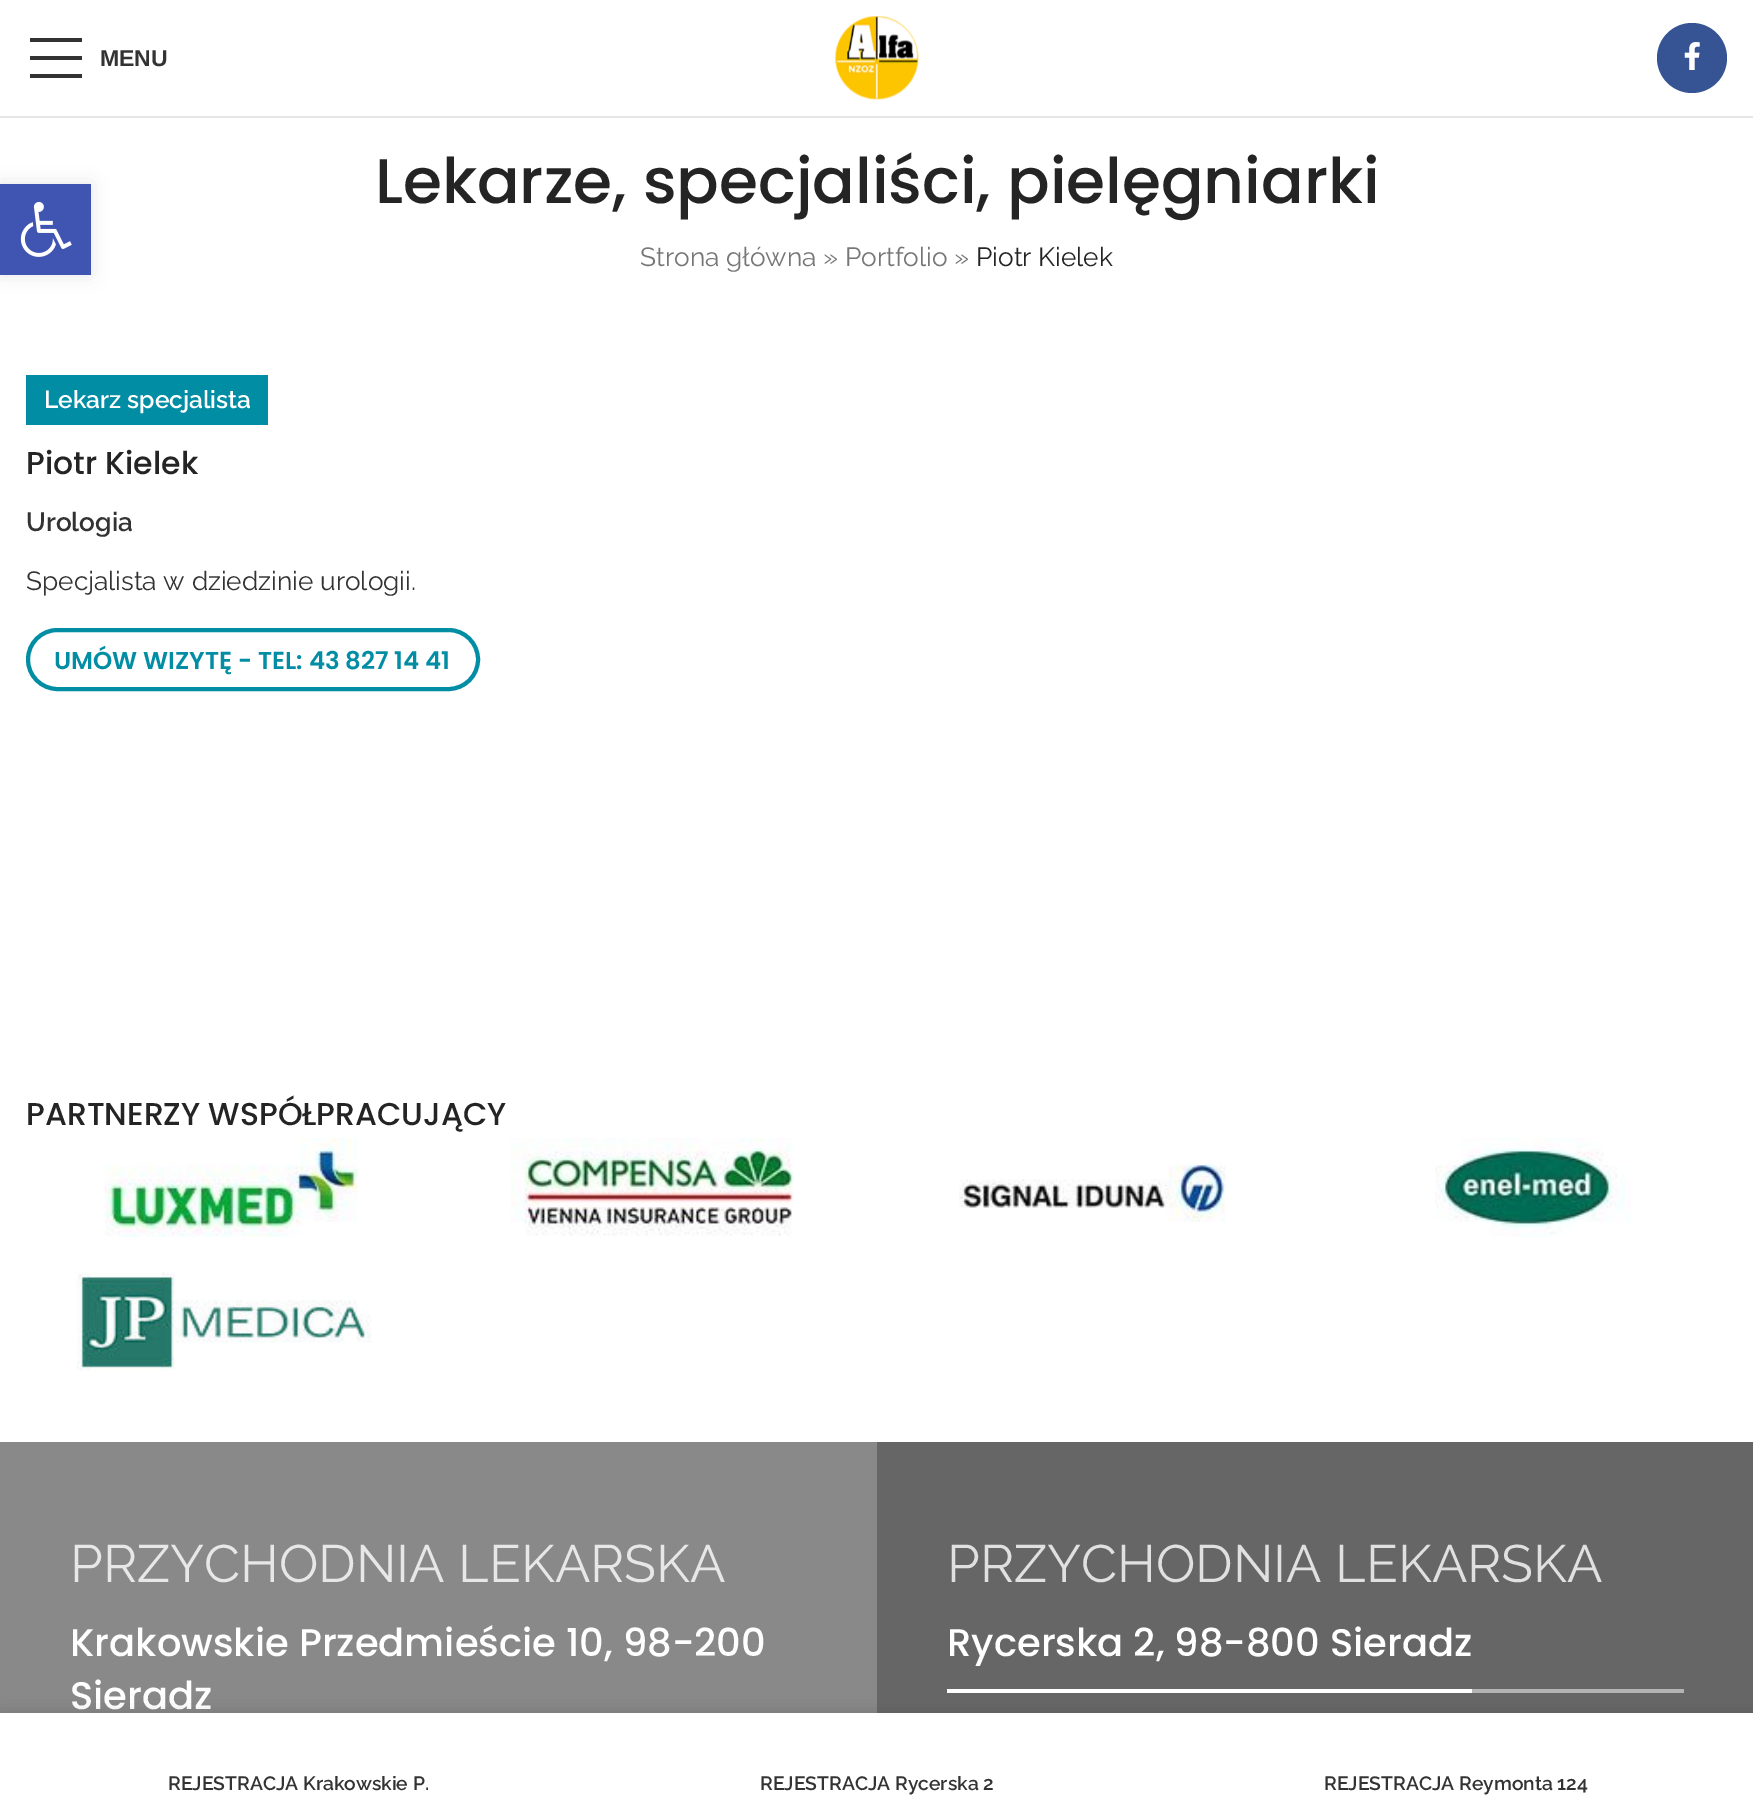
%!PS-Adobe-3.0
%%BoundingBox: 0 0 1753 1808
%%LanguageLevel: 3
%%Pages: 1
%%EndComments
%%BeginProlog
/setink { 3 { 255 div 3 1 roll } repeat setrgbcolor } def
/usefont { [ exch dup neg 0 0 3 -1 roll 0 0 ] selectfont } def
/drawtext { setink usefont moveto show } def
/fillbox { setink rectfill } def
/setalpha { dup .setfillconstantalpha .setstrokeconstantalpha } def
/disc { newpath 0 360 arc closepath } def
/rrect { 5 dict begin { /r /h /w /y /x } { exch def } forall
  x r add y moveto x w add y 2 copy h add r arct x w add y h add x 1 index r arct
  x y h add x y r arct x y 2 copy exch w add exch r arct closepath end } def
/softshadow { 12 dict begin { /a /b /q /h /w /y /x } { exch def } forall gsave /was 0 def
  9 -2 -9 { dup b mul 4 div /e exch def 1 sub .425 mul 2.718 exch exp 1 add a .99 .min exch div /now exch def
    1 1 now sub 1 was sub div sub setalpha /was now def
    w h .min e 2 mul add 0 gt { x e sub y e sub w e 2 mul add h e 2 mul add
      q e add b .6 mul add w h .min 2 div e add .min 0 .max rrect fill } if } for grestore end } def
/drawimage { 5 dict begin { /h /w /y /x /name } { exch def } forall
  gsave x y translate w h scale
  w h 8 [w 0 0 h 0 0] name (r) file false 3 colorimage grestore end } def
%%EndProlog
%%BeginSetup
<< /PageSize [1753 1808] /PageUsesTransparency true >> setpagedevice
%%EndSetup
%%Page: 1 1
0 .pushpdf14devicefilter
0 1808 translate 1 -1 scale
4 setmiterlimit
0 0 1753 1808 255 255 255 fillbox
0 116 1753 2 230 230 230 fillbox
51 51 51 setink
30 42 moveto 82 42 lineto 82 38 lineto 30 38 lineto closepath 30 60 moveto 82 60 lineto 82 56 lineto 30 56 lineto closepath 30 78 moveto 82 78 lineto 82 74 lineto 30 74 lineto closepath fill
(MENU) 100 66 /LiberationSans-Bold 23 51 51 51 drawtext
(assets/img1.rgb) 835 16 84 84 drawimage
54 84 147 setink
1692 58 35 disc fill
(assets/img2.rgb) 1684 42 16 28 drawimage
(Lekarze, specjaliści, pielęgniarki) 375 203 /Poppins-Medium 63 36 36 36 drawtext
(Strona główna » Portfolio ») 640 266 /Raleway-Regular 26.25 118 118 118 drawtext
(Piotr Kielek) 976 266 /Raleway-Regular 26.25 36 36 36 drawtext
26 375 242 50 1 141 164 fillbox
(Lekarz specjalista) 44 408 /Raleway-SemiBold 24.5 255 255 255 drawtext
(Piotr Kielek) 26 474 /Poppins-Medium 31.5 36 36 36 drawtext
(Urologia) 26 531 /Raleway-SemiBold 26.25 51 51 51 drawtext
(Specjalista w dziedzinie urologii.) 26 590 /Raleway-Regular 26.25 51 51 51 drawtext
1 141 164 setink
4 setlinewidth
28 630 450 59 29.5 rrect stroke
(UMÓW WIZYTĘ - TEL: 43 827 14 41) 54 669 /Poppins-SemiBold 24.5 1 141 164 drawtext
(PARTNERZY WSPÓŁPRACUJĄCY) 26 1125 /Poppins-Medium 31.5 36 36 36 drawtext
(assets/img3.rgb) 104 1138 255 99 drawimage
(assets/img4.rgb) 511 1138 283 98 drawimage
(assets/img5.rgb) 959 1163 267 59 drawimage
(assets/img6.rgb) 1435 1138 196 99 drawimage
(assets/img7.rgb) 77 1272 295 99 drawimage
0 1442 877 271 137 137 137 fillbox
(PRZYCHODNIA LEKARSKA) 70 1582 /Raleway-Regular 52.5 231 231 231 drawtext
(Krakowskie Przedmieście 10, 98-200) 70 1656 /Poppins-Medium 38.5 255 255 255 drawtext
(Sieradz) 70 1709 /Poppins-Medium 38.5 255 255 255 drawtext
877 1442 876 271 102 102 102 fillbox
(PRZYCHODNIA LEKARSKA) 947 1582 /Raleway-Regular 52.5 224 224 224 drawtext
1472 1689 212 4 179 179 179 fillbox
947 1689 525 4 255 255 255 fillbox
(Rycerska 2, 98-800 Sieradz) 947 1656 /Poppins-Medium 38.5 255 255 255 drawtext
0 0 0 setink
0 184 91 91 0 9 0.1 softshadow
0 184 91 91 64 84 178 fillbox
(assets/img8.rgb) 20 201 52 56 drawimage
0 0 0 setink
0 1713 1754 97 0 8 0.12 softshadow
0 1713 1753 95 255 255 255 fillbox
(REJESTRACJA Krakowskie P.) 168 1790 /Raleway-SemiBold 19.25 51 51 51 drawtext
(REJESTRACJA Rycerska 2) 760 1790 /Raleway-SemiBold 19.25 51 51 51 drawtext
(REJESTRACJA Reymonta 124) 1324 1790 /Raleway-SemiBold 19.25 51 51 51 drawtext
.poppdf14devicefilter showpage
%%EOF
